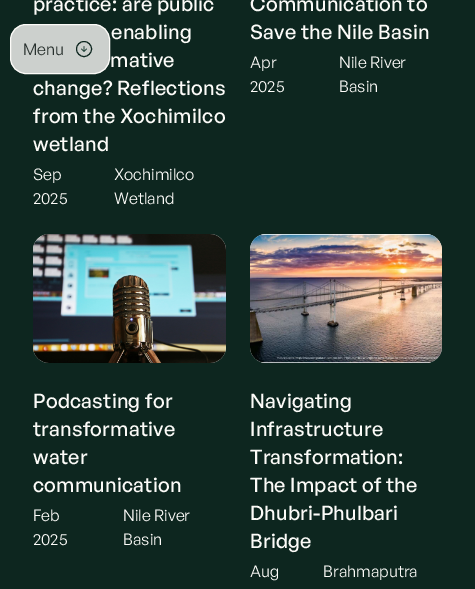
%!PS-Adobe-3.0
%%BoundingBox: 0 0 475 589
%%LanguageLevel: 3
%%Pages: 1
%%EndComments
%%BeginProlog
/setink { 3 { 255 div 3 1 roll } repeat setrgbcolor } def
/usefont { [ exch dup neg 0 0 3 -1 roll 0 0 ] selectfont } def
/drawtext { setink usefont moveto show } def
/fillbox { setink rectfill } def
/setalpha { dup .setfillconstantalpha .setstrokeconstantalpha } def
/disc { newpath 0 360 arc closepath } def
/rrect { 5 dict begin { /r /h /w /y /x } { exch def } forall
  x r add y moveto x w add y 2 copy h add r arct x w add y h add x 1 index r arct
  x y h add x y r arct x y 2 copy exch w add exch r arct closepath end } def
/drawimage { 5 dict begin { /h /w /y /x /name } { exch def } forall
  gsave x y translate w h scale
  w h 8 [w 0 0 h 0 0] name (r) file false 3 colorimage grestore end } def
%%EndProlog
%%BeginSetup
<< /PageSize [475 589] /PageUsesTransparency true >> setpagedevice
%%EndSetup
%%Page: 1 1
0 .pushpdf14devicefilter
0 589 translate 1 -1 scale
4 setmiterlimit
0 0 475 589 13 38 31 fillbox
/GeneralSans-Medium 20 usefont
252 251 248 setink
33 11 moveto 0.25 0 (practice: are public) ashow
111 39 moveto 0.25 0 (enabling) ashow
110 67 moveto 0.25 0 (mative) ashow
33 95 moveto 0.25 0 (change? Reflections) ashow
33 123 moveto 0.25 0 (from the Xochimilco) ashow
33 151 moveto 0.25 0 (wetland) ashow
(Sep) 33 180 /GeneralSans-Regular 16 252 251 248 drawtext
(2025) 33 204 /GeneralSans-Regular 16 252 251 248 drawtext
(Xochimilco) 114 180 /GeneralSans-Regular 16 252 251 248 drawtext
(Wetland) 114 204 /GeneralSans-Regular 16 252 251 248 drawtext
/GeneralSans-Medium 20 usefont
250 11 moveto 0.25 0 (Communication to) ashow
250 39 moveto 0.25 0 (Save the Nile Basin) ashow
(Apr) 250 68 /GeneralSans-Regular 16 252 251 248 drawtext
(2025) 250 92 /GeneralSans-Regular 16 252 251 248 drawtext
(Nile River) 339 68 /GeneralSans-Regular 16 252 251 248 drawtext
(Basin) 339 92 /GeneralSans-Regular 16 252 251 248 drawtext
240 240 240 setink
33 234 193 129 16 rrect fill
(assets/img1.rgb) 33 234 193 129 drawimage
/GeneralSans-Medium 20 usefont
252 251 248 setink
33 408 moveto 0.25 0 (Podcasting for) ashow
33 436 moveto 0.25 0 (transformative) ashow
33 464 moveto 0.25 0 (water) ashow
33 492 moveto 0.25 0 (communication) ashow
(Feb) 33 521 /GeneralSans-Regular 16 252 251 248 drawtext
(2025) 33 545 /GeneralSans-Regular 16 252 251 248 drawtext
(Nile River) 123 521 /GeneralSans-Regular 16 252 251 248 drawtext
(Basin) 123 545 /GeneralSans-Regular 16 252 251 248 drawtext
240 240 240 setink
250 234 192 129 16 rrect fill
(assets/img2.rgb) 250 234 192 129 drawimage
/GeneralSans-Medium 20 usefont
252 251 248 setink
250 408 moveto 0.25 0 (Navigating) ashow
250 436 moveto 0.25 0 (Infrastructure) ashow
250 464 moveto 0.25 0 (Transformation:) ashow
250 492 moveto 0.25 0 (The Impact of the) ashow
250 520 moveto 0.25 0 (Dhubri-Phulbari) ashow
250 548 moveto 0.25 0 (Bridge) ashow
(Aug) 250 577 /GeneralSans-Regular 16 252 251 248 drawtext
(Brahmaputra) 323 577 /GeneralSans-Regular 16 252 251 248 drawtext
0.8 setalpha
10.5 24.5 99 49 15.5 rrect fill
1 setalpha
10.5 24.5 99 49 15.5 rrect stroke
(Menu) 23 55 /GeneralSans-Regular 16 40 49 46 drawtext
13 38 31 setink
84 49 7.5 disc stroke
(assets/img3.rgb) 81 46 6 6 drawimage
.poppdf14devicefilter showpage
%%EOF
